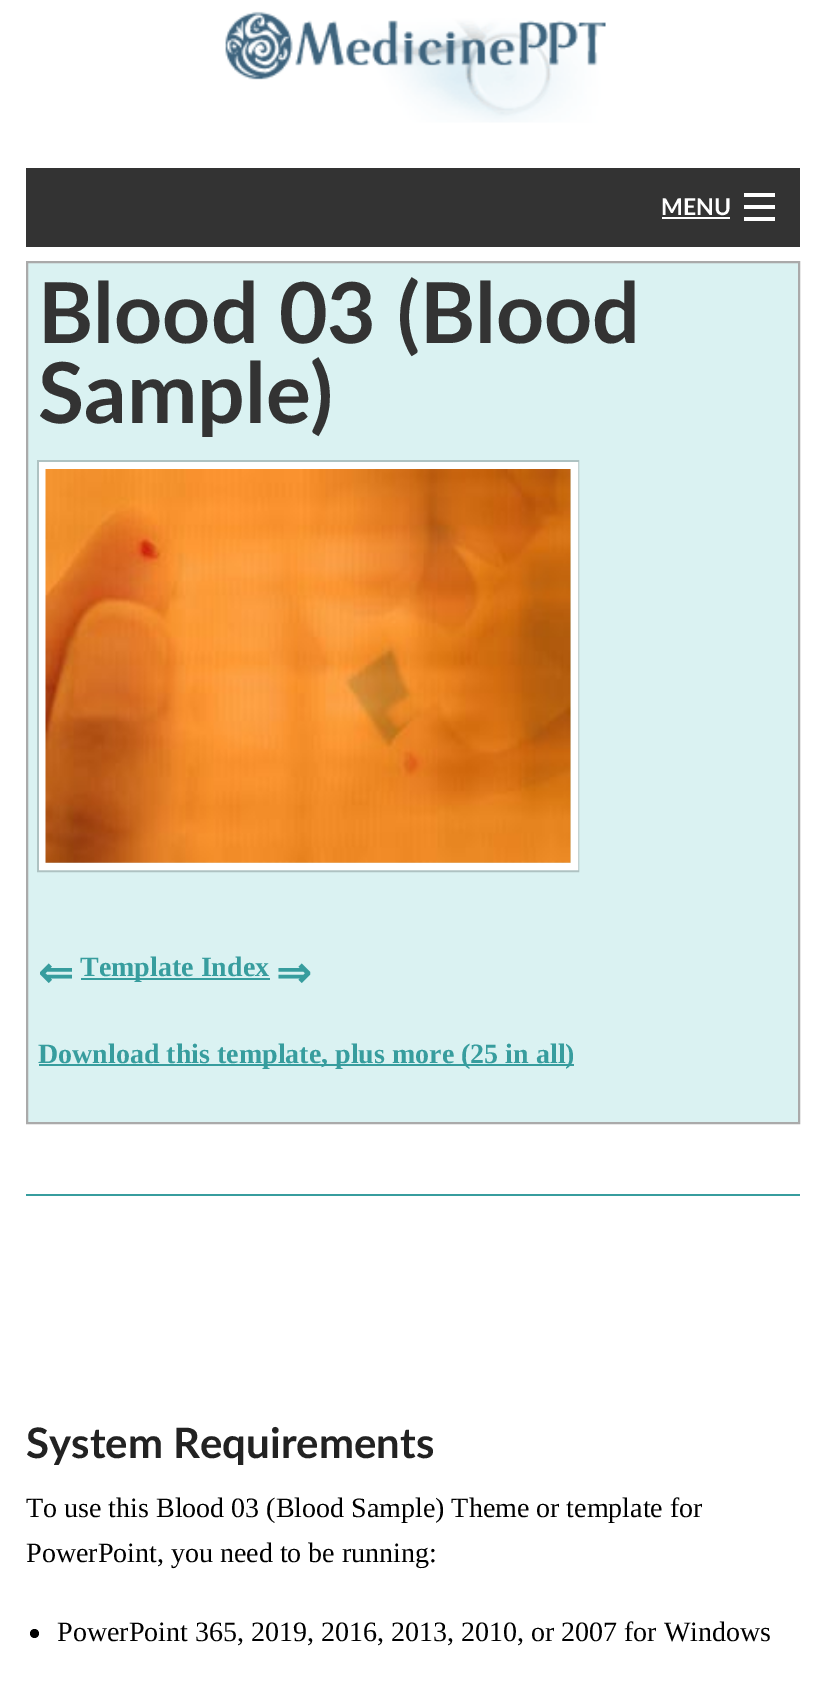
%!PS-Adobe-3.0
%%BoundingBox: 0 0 826 1687
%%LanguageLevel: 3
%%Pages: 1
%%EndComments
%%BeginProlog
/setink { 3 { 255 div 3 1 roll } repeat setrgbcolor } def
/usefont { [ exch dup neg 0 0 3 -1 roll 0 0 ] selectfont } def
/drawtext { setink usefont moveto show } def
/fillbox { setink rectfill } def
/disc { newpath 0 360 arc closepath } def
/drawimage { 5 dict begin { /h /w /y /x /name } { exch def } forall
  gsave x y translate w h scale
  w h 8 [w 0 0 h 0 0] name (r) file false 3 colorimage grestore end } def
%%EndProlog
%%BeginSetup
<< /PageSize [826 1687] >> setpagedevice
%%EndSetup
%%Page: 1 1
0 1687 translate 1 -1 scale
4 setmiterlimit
0 0 826 1687 255 255 255 fillbox
(assets/img1.rgb) 225 11 381 112 drawimage
26 168 774 79 51 51 51 fillbox
(MENU) 661 215 /Lato-Bold 23 255 255 255 drawtext
662 217 68 2 255 255 255 fillbox
744 217 31 4 255 255 255 fillbox
744 205 31 4 255 255 255 fillbox
744 193 31 4 255 255 255 fillbox
218 242 242 setink
27 262 moveto 799 262 lineto 799 1123 lineto 27 1123 lineto closepath gsave fill grestore
170 170 170 setink
2 setlinewidth
stroke
(Blood 03 \(Blood) 38 343 /Lato-Bold 84 51 51 51 drawtext
(Sample\)) 38 423 /Lato-Bold 84 51 51 51 drawtext
174 194 194 setink
38 461 540 410 rectstroke
255 255 255 setink
7 setlinewidth
42.5 465.5 532 401 rectstroke
(assets/img2.rgb) 45 469 526 394 drawimage
(⇐) 38 987 /DejaVuSans-Bold 42 55 157 158 drawtext
81 978 189 2 55 157 158 fillbox
(Template Index) 80 976 /LiberationSerif-Bold 28 55 157 158 drawtext
(⇒) 276 987 /DejaVuSans-Bold 42 55 157 158 drawtext
39 1064 535 2 55 157 158 fillbox
(Download this template, plus more \(25 in all\)) 38 1063 /LiberationSerif-Bold 28 55 157 158 drawtext
26 1194 774 2 55 157 158 fillbox
(System Requirements) 26 1458 /Lato-Bold 42 34 34 34 drawtext
(To use this Blood 03 \(Blood Sample\) Theme or template for) 26 1517 /LiberationSerif-Regular 28 0 0 0 drawtext
(PowerPoint, you need to be running:) 26 1562 /LiberationSerif-Regular 28 0 0 0 drawtext
34.5 1633.5 4.5 disc fill
(PowerPoint 365, 2019, 2016, 2013, 2010, or 2007 for Windows) 57 1641 /LiberationSerif-Regular 28 0 0 0 drawtext
showpage
%%EOF
